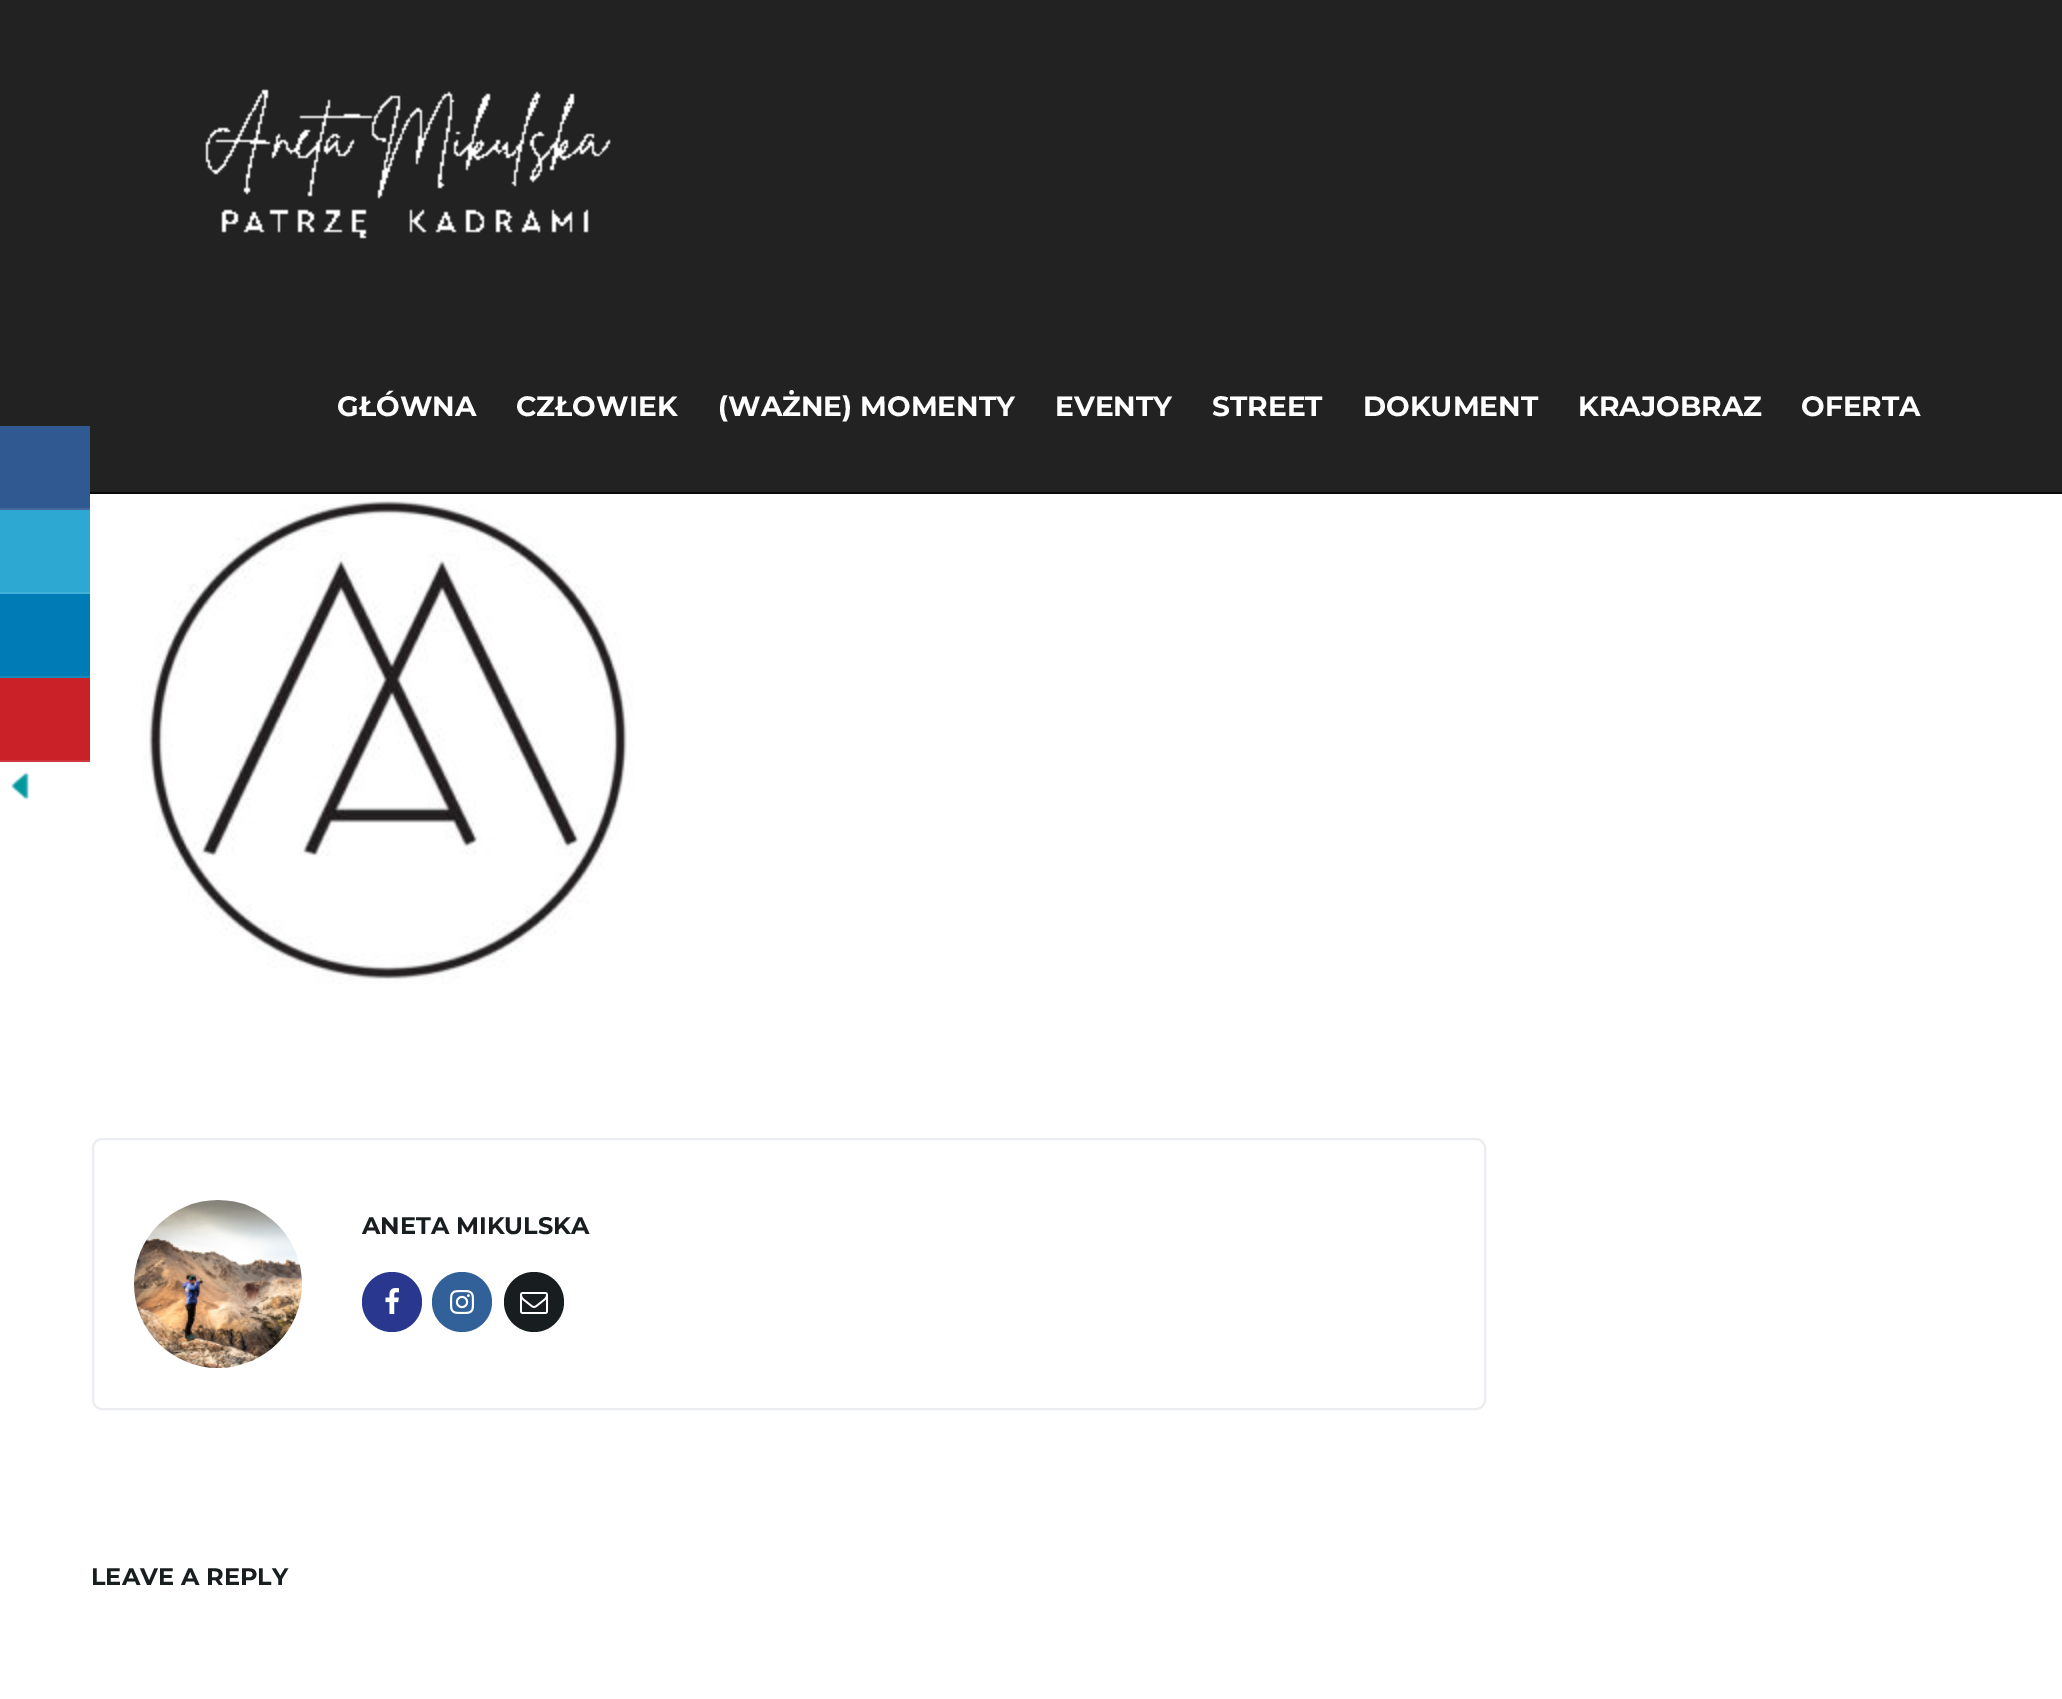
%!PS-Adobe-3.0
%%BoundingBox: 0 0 2062 1699
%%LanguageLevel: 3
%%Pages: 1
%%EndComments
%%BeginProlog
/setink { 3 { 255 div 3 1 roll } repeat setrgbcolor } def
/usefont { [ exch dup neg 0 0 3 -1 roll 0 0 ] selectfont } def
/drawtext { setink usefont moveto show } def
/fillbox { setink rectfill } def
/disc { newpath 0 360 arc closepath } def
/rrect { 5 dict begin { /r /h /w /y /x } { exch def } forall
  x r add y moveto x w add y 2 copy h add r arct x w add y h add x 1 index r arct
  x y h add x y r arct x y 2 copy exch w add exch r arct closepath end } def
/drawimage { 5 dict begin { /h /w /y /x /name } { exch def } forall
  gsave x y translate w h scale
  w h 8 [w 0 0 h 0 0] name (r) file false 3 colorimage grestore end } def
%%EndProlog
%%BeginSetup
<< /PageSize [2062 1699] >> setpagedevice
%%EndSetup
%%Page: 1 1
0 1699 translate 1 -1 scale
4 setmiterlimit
0 0 2062 1699 255 255 255 fillbox
0 0 2062 492 34 34 34 fillbox
90 492 1972 2 8 8 8 fillbox
(assets/img1.rgb) 205 89 406 150 drawimage
(GŁÓWNA) 337 416 /Montserrat-Thin 28 255 255 255 drawtext
(CZŁOWIEK) 516 416 /Montserrat-Thin 28 255 255 255 drawtext
(\(WAŻNE\) MOMENTY) 718 416 /Montserrat-Thin 28 255 255 255 drawtext
(EVENTY) 1055 416 /Montserrat-Thin 28 255 255 255 drawtext
(STREET) 1212 416 /Montserrat-Thin 28 255 255 255 drawtext
(DOKUMENT) 1363 416 /Montserrat-Thin 28 255 255 255 drawtext
(KRAJOBRAZ) 1578 416 /Montserrat-Thin 28 255 255 255 drawtext
(OFERTA) 1801 416 /Montserrat-Thin 28 255 255 255 drawtext
0 426 90 82 48 88 145 fillbox
0 508 90 2 69 105 156 fillbox
0 510 90 82 44 168 210 fillbox
0 592 90 2 65 177 215 fillbox
0 594 90 82 0 123 182 fillbox
0 676 90 2 26 136 189 fillbox
0 678 90 82 202 32 39 fillbox
0 760 90 2 207 54 61 fillbox
(assets/img2.rgb) 11 772 18 28 drawimage
(assets/img3.rgb) 142 500 492 484 drawimage
235 237 240 setink
2 setlinewidth
93 1139 1392 270 9 rrect stroke
(assets/img4.rgb) 134 1200 168 168 drawimage
(ANETA MIKULSKA) 362 1234 /Montserrat-Thin 24 24 30 31 drawtext
41 56 142 setink
392 1302 30 disc fill
(assets/img5.rgb) 385 1288 14 26 drawimage
49 97 152 setink
462 1302 30 disc fill
(assets/img6.rgb) 450 1290 24 24 drawimage
24 30 31 setink
534 1302 30 disc fill
(assets/img7.rgb) 520 1292 28 22 drawimage
(LEAVE A REPLY) 91 1585 /Montserrat-Thin 24 24 30 31 drawtext
showpage
%%EOF
